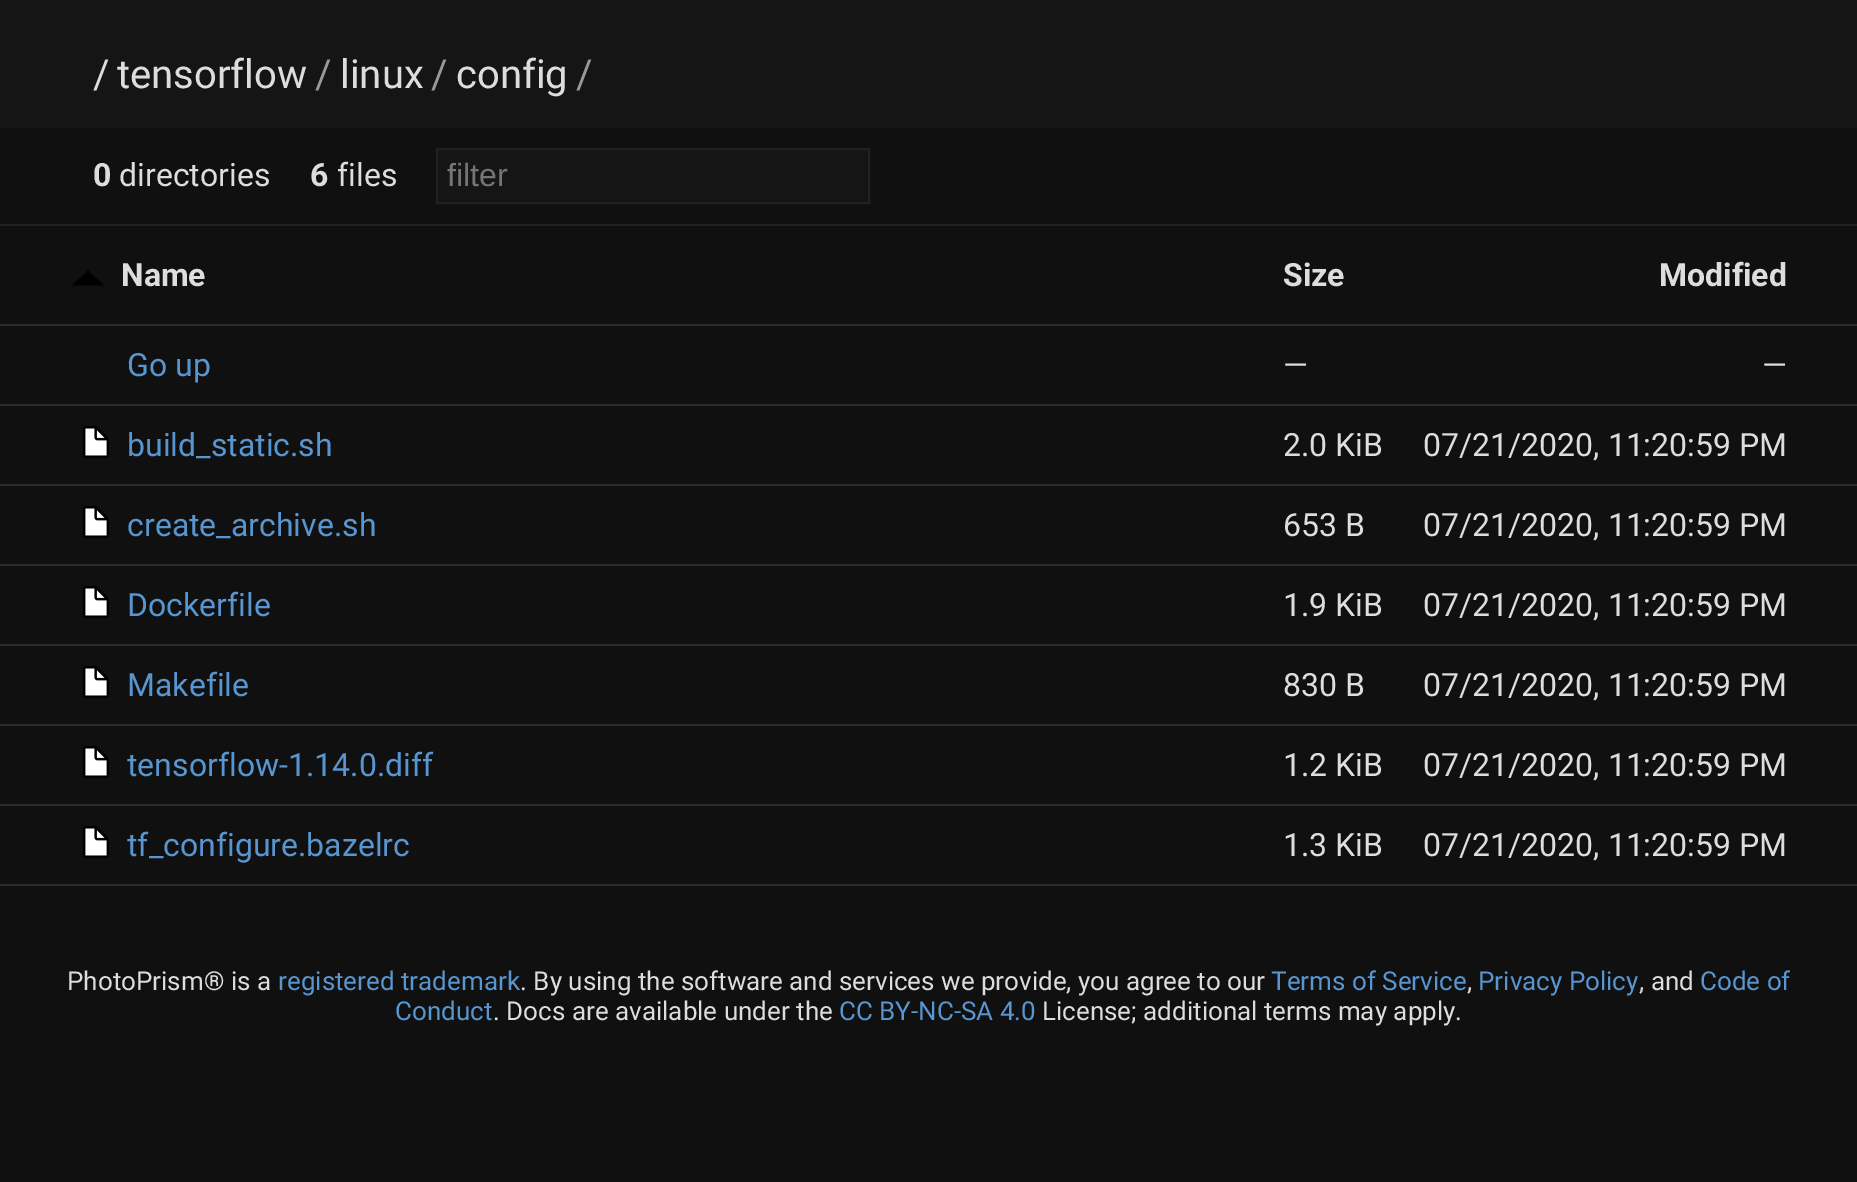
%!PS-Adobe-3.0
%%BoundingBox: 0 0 1857 1182
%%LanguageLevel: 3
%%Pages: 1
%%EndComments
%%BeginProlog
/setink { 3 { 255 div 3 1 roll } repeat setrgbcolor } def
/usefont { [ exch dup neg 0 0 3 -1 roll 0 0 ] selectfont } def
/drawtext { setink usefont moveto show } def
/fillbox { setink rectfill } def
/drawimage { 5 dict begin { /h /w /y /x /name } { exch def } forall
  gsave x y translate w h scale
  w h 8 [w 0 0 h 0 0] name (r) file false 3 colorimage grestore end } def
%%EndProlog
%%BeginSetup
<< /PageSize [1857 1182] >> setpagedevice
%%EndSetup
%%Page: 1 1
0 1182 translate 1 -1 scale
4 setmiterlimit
0 0 1857 1182 16 16 16 fillbox
0 0 1857 128 21 21 21 fillbox
(/) 93 88 /Roboto-Regular 40 221 221 221 drawtext
(tensorflow) 117 88 /Roboto-Regular 40 221 221 221 drawtext
(/) 315 88 /Roboto-Regular 40 153 153 153 drawtext
(linux) 340 88 /Roboto-Regular 40 221 221 221 drawtext
(/) 431 88 /Roboto-Regular 40 153 153 153 drawtext
(config) 456 88 /Roboto-Regular 40 221 221 221 drawtext
(/) 576 88 /Roboto-Regular 40 153 153 153 drawtext
0 224 1857 2 33 33 33 fillbox
(0) 93 186 /Roboto-Bold 32 221 221 221 drawtext
(directories) 119 186 /Roboto-Regular 32 221 221 221 drawtext
(6) 310 186 /Roboto-Bold 32 221 221 221 drawtext
(files) 337 186 /Roboto-Regular 32 221 221 221 drawtext
21 21 21 setink
437 149 moveto 869 149 lineto 869 203 lineto 437 203 lineto closepath gsave fill grestore
33 33 33 setink
2 setlinewidth
stroke
(filter) 447 186 /LiberationSans-Regular 32 117 117 117 drawtext
0 324 1857 2 45 45 45 fillbox
0 0 0 setink
104 285.5 moveto 72 285.5 lineto 88 270.5 lineto 96 278 lineto closepath fill
(Name) 121 286 /Roboto-Bold 32 221 221 221 drawtext
(Size) 1283 286 /Roboto-Bold 32 221 221 221 drawtext
(Modified) 1659 286 /Roboto-Bold 32 221 221 221 drawtext
0 404 1857 2 45 45 45 fillbox
(Go up) 127 376 /Roboto-Regular 32 87 150 209 drawtext
(—) 1283 376 /Roboto-Regular 32 221 221 221 drawtext
(—) 1762 376 /Roboto-Regular 32 221 221 221 drawtext
0 484 1857 2 45 45 45 fillbox
(assets/img1.rgb) 83 426 26 32 drawimage
(build_static.sh) 127 456 /Roboto-Regular 32 87 150 209 drawtext
(2.0 KiB) 1283 456 /Roboto-Regular 32 221 221 221 drawtext
(07/21/2020, 11:20:59 PM) 1423 456 /Roboto-Regular 32 221 221 221 drawtext
0 564 1857 2 45 45 45 fillbox
(assets/img1.rgb) 83 506 26 32 drawimage
(create_archive.sh) 127 536 /Roboto-Regular 32 87 150 209 drawtext
(653 B) 1283 536 /Roboto-Regular 32 221 221 221 drawtext
(07/21/2020, 11:20:59 PM) 1423 536 /Roboto-Regular 32 221 221 221 drawtext
0 644 1857 2 45 45 45 fillbox
(assets/img1.rgb) 83 586 26 32 drawimage
(Dockerfile) 127 616 /Roboto-Regular 32 87 150 209 drawtext
(1.9 KiB) 1283 616 /Roboto-Regular 32 221 221 221 drawtext
(07/21/2020, 11:20:59 PM) 1423 616 /Roboto-Regular 32 221 221 221 drawtext
0 724 1857 2 45 45 45 fillbox
(assets/img1.rgb) 83 666 26 32 drawimage
(Makefile) 127 696 /Roboto-Regular 32 87 150 209 drawtext
(830 B) 1283 696 /Roboto-Regular 32 221 221 221 drawtext
(07/21/2020, 11:20:59 PM) 1423 696 /Roboto-Regular 32 221 221 221 drawtext
0 804 1857 2 45 45 45 fillbox
(assets/img1.rgb) 83 746 26 32 drawimage
(tensorflow-1.14.0.diff) 127 776 /Roboto-Regular 32 87 150 209 drawtext
(1.2 KiB) 1283 776 /Roboto-Regular 32 221 221 221 drawtext
(07/21/2020, 11:20:59 PM) 1423 776 /Roboto-Regular 32 221 221 221 drawtext
0 884 1857 2 45 45 45 fillbox
(assets/img1.rgb) 83 826 26 32 drawimage
(tf_configure.bazelrc) 127 856 /Roboto-Regular 32 87 150 209 drawtext
(1.3 KiB) 1283 856 /Roboto-Regular 32 221 221 221 drawtext
(07/21/2020, 11:20:59 PM) 1423 856 /Roboto-Regular 32 221 221 221 drawtext
(PhotoPrism® is a) 67 990 /Roboto-Regular 26 221 221 221 drawtext
(registered trademark) 278 990 /Roboto-Regular 26 87 150 209 drawtext
(. By using the software and services we provide, you agree to our) 520 990 /Roboto-Regular 26 221 221 221 drawtext
(Terms of Service) 1271 990 /Roboto-Regular 26 87 150 209 drawtext
(,) 1467 990 /Roboto-Regular 26 221 221 221 drawtext
(Privacy Policy) 1478 990 /Roboto-Regular 26 87 150 209 drawtext
(, and) 1639 990 /Roboto-Regular 26 221 221 221 drawtext
(Code of) 1700 990 /Roboto-Regular 26 87 150 209 drawtext
(Conduct) 395 1020 /Roboto-Regular 26 87 150 209 drawtext
(. Docs are available under the) 493 1020 /Roboto-Regular 26 221 221 221 drawtext
(CC BY-NC-SA 4.0) 839 1020 /Roboto-Regular 26 87 150 209 drawtext
(License; additional terms may apply.) 1042 1020 /Roboto-Regular 26 221 221 221 drawtext
showpage
%%EOF
